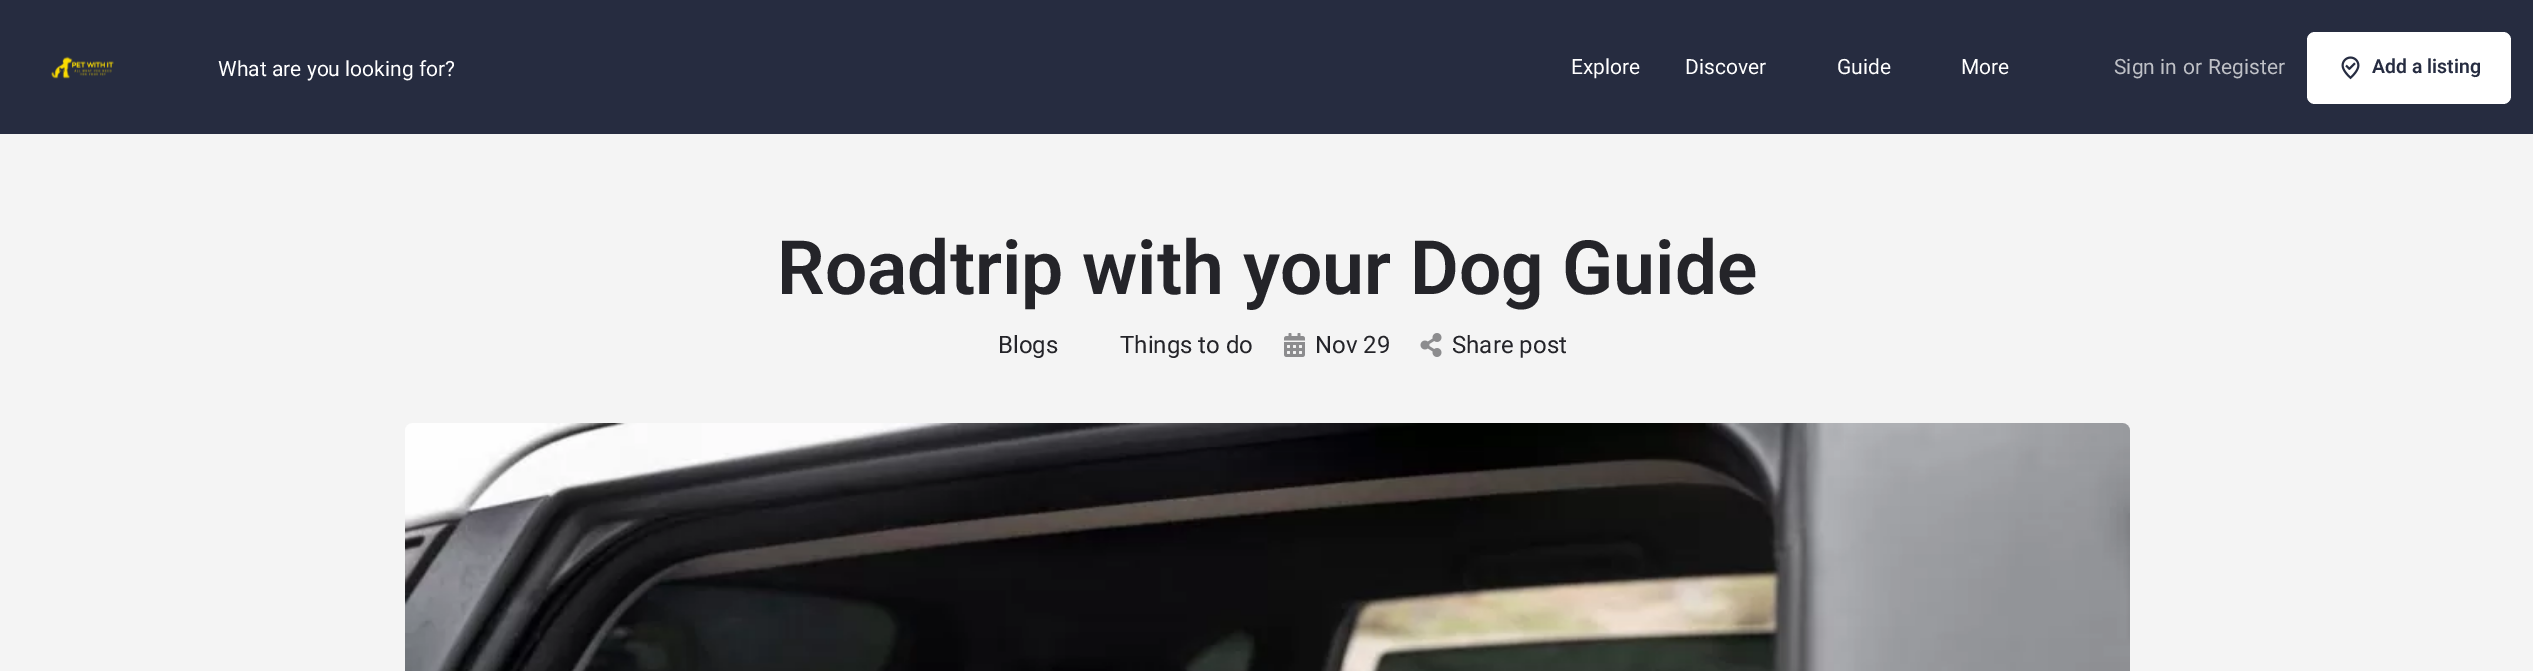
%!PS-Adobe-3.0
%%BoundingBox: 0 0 2533 671
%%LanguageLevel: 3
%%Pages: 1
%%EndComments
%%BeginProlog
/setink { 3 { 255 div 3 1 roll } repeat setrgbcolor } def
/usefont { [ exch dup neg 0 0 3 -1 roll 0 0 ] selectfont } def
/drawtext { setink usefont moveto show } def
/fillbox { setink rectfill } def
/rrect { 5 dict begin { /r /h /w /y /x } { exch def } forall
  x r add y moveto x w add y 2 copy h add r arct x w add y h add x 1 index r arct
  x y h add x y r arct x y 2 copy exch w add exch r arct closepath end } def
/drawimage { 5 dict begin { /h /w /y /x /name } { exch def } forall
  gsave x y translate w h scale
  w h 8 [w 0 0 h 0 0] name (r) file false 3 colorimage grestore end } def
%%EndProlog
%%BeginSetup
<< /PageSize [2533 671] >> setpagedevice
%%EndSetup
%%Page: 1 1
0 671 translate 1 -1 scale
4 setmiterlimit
0 0 2533 671 244 244 244 fillbox
0 0 2533 134 38 44 64 fillbox
(assets/img1.rgb) 51 56 63 23 drawimage
(What are you looking for?) 218 76 /Roboto-Regular 21 255 255 255 drawtext
(Explore) 1571 74 /Roboto-Regular 21 255 255 255 drawtext
(Discover) 1685 74 /Roboto-Regular 21 255 255 255 drawtext
(Guide) 1837 74 /Roboto-Regular 21 255 255 255 drawtext
(More) 1961 74 /Roboto-Regular 21 255 255 255 drawtext
(Sign in) 2114 74 /Roboto-Regular 21 190 192 198 drawtext
(or) 2183 74 /Roboto-Regular 21 190 192 198 drawtext
(Register) 2208 74 /Roboto-Regular 21 190 192 198 drawtext
255 255 255 setink
2307 32 204 72 8 rrect fill
(assets/img2.rgb) 2341 56 19 24 drawimage
(Add a listing) 2372 73 /Roboto-SemiBold 19.5 38 44 65 drawtext
(Roadtrip with your Dog Guide) 777 294 /Roboto-SemiBold 75 36 36 41 drawtext
(Blogs) 998 353 /Roboto-Regular 24 36 36 41 drawtext
(Things to do) 1120 353 /Roboto-Regular 24 36 36 41 drawtext
(assets/img3.rgb) 1284 333 21 24 drawimage
(Nov 29) 1315 353 /Roboto-Regular 24 36 36 41 drawtext
(assets/img4.rgb) 1420 333 22 24 drawimage
(Share post) 1452 353 /Roboto-Regular 24 36 36 41 drawtext
(assets/img5.rgb) 405 423 1725 248 drawimage
showpage
%%EOF
